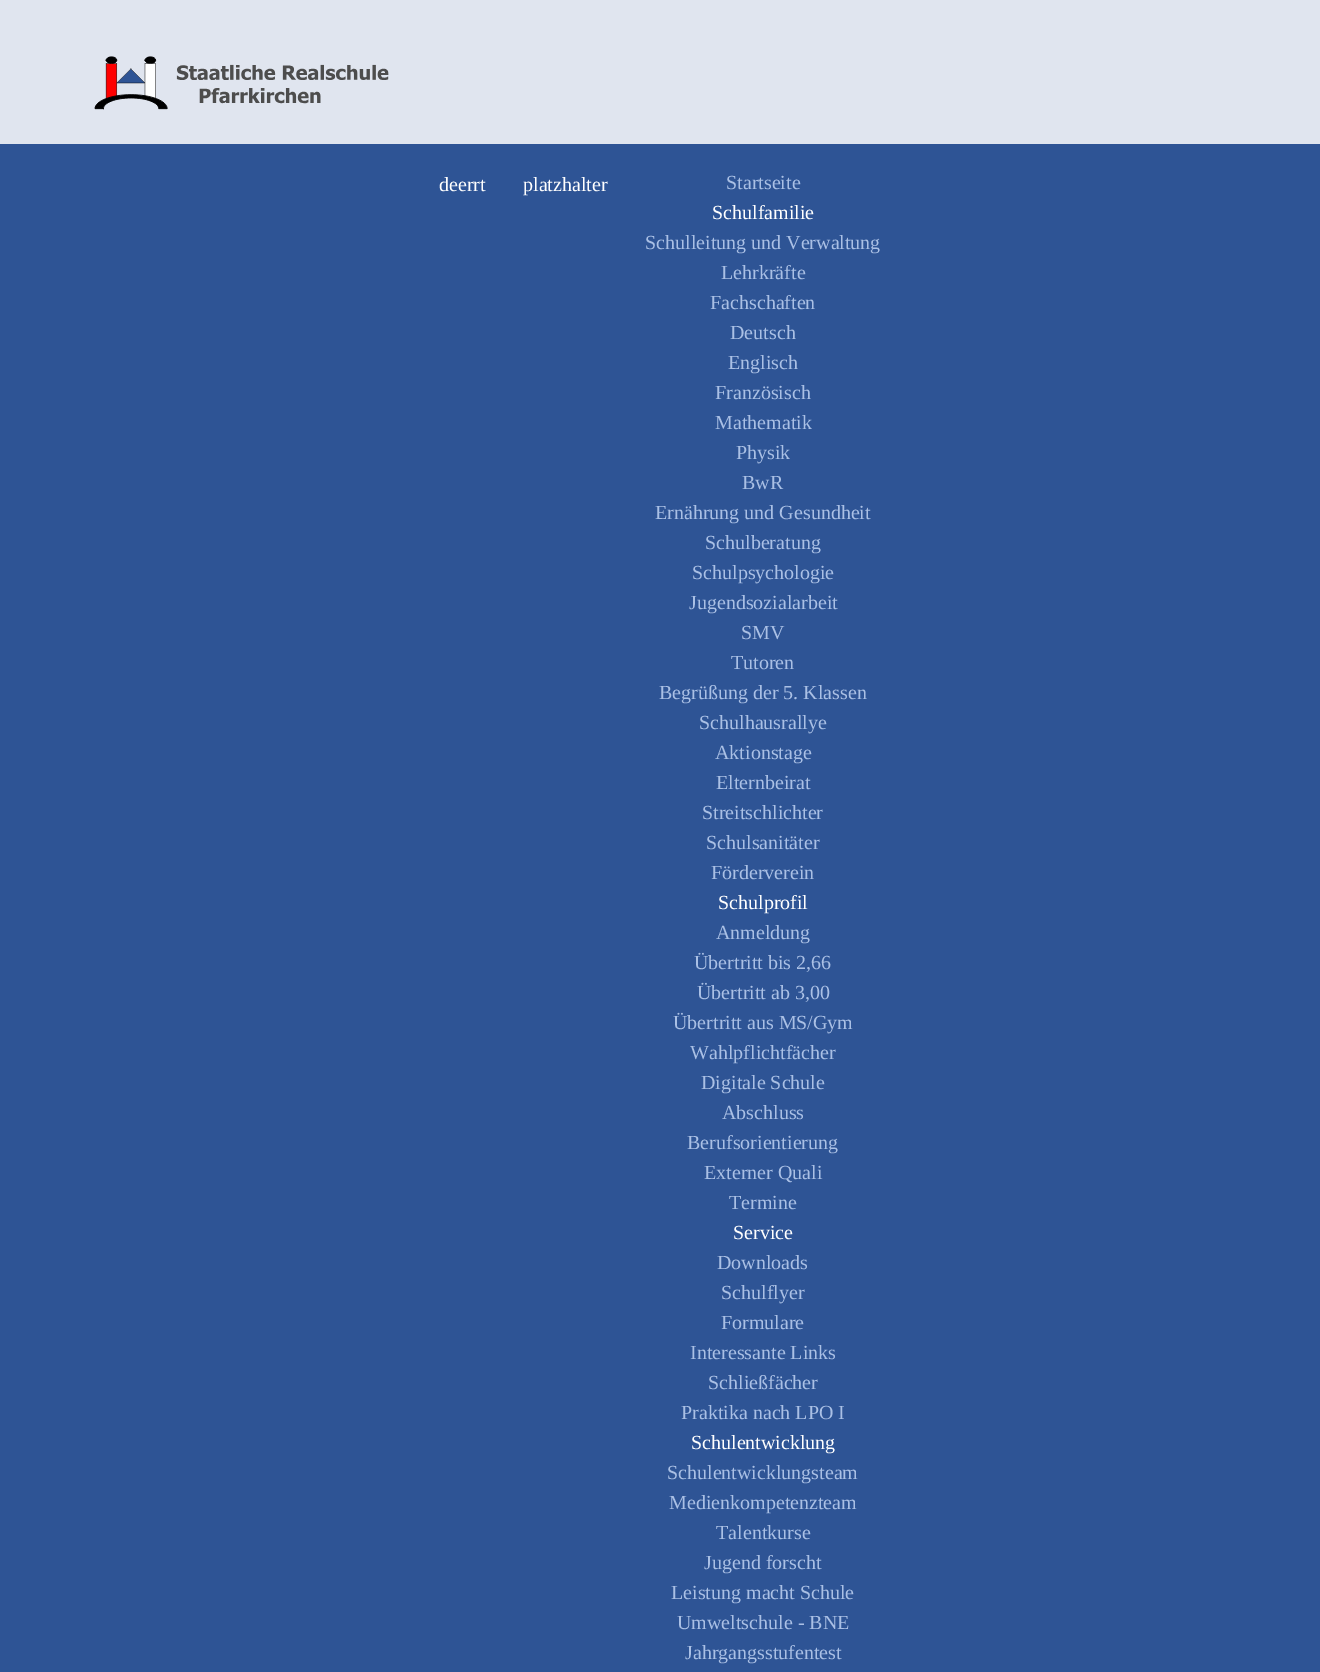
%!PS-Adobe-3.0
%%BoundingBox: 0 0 1320 1672
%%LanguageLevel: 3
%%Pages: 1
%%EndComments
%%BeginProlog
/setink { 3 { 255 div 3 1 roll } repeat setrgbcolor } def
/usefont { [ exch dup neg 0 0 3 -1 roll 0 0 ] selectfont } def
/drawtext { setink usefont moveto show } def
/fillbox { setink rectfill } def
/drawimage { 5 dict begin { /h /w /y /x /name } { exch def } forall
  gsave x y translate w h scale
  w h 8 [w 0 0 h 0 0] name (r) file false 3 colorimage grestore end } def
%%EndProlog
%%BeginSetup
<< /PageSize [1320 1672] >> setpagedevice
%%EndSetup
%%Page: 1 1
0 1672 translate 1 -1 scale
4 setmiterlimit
0 0 1320 1672 46 84 149 fillbox
0 0 1320 144 224 229 239 fillbox
(assets/img1.rgb) 94 56 295 54 drawimage
(deerrt) 439 191 /LiberationSerif-Regular 20 255 255 255 drawtext
(platzhalter) 523 191 /LiberationSerif-Regular 20 255 255 255 drawtext
(Startseite) 726 189 /LiberationSerif-Regular 20 170 192 229 drawtext
(Schulfamilie) 712 219 /LiberationSerif-Regular 20 255 255 255 drawtext
(Schulleitung und Verwaltung) 645 249 /LiberationSerif-Regular 20 170 192 229 drawtext
(Lehrkräfte) 721 279 /LiberationSerif-Regular 20 170 192 229 drawtext
(Fachschaften) 710 309 /LiberationSerif-Regular 20 170 192 229 drawtext
(Deutsch) 730 339 /LiberationSerif-Regular 20 170 192 229 drawtext
(Englisch) 728 369 /LiberationSerif-Regular 20 170 192 229 drawtext
(Französisch) 715 399 /LiberationSerif-Regular 20 170 192 229 drawtext
(Mathematik) 715 429 /LiberationSerif-Regular 20 170 192 229 drawtext
(Physik) 736 459 /LiberationSerif-Regular 20 170 192 229 drawtext
(BwR) 742 489 /LiberationSerif-Regular 20 170 192 229 drawtext
(Ernährung und Gesundheit) 655 519 /LiberationSerif-Regular 20 170 192 229 drawtext
(Schulberatung) 705 549 /LiberationSerif-Regular 20 170 192 229 drawtext
(Schulpsychologie) 692 579 /LiberationSerif-Regular 20 170 192 229 drawtext
(Jugendsozialarbeit) 689 609 /LiberationSerif-Regular 20 170 192 229 drawtext
(SMV) 741 639 /LiberationSerif-Regular 20 170 192 229 drawtext
(Tutoren) 731 669 /LiberationSerif-Regular 20 170 192 229 drawtext
(Begrüßung der 5. Klassen) 659 699 /LiberationSerif-Regular 20 170 192 229 drawtext
(Schulhausrallye) 699 729 /LiberationSerif-Regular 20 170 192 229 drawtext
(Aktionstage) 715 759 /LiberationSerif-Regular 20 170 192 229 drawtext
(Elternbeirat) 716 789 /LiberationSerif-Regular 20 170 192 229 drawtext
(Streitschlichter) 702 819 /LiberationSerif-Regular 20 170 192 229 drawtext
(Schulsanitäter) 706 849 /LiberationSerif-Regular 20 170 192 229 drawtext
(Förderverein) 711 879 /LiberationSerif-Regular 20 170 192 229 drawtext
(Schulprofil) 718 909 /LiberationSerif-Regular 20 255 255 255 drawtext
(Anmeldung) 716 939 /LiberationSerif-Regular 20 170 192 229 drawtext
(Übertritt bis 2,66) 694 969 /LiberationSerif-Regular 20 170 192 229 drawtext
(Übertritt ab 3,00) 697 999 /LiberationSerif-Regular 20 170 192 229 drawtext
(Übertritt aus MS/Gym) 673 1029 /LiberationSerif-Regular 20 170 192 229 drawtext
(Wahlpflichtfächer) 690 1059 /LiberationSerif-Regular 20 170 192 229 drawtext
(Digitale Schule) 701 1089 /LiberationSerif-Regular 20 170 192 229 drawtext
(Abschluss) 722 1119 /LiberationSerif-Regular 20 170 192 229 drawtext
(Berufsorientierung) 687 1149 /LiberationSerif-Regular 20 170 192 229 drawtext
(Externer Quali) 704 1179 /LiberationSerif-Regular 20 170 192 229 drawtext
(Termine) 729 1209 /LiberationSerif-Regular 20 170 192 229 drawtext
(Service) 733 1239 /LiberationSerif-Regular 20 255 255 255 drawtext
(Downloads) 717 1269 /LiberationSerif-Regular 20 170 192 229 drawtext
(Schulflyer) 721 1299 /LiberationSerif-Regular 20 170 192 229 drawtext
(Formulare) 721 1329 /LiberationSerif-Regular 20 170 192 229 drawtext
(Interessante Links) 690 1359 /LiberationSerif-Regular 20 170 192 229 drawtext
(Schließfächer) 708 1389 /LiberationSerif-Regular 20 170 192 229 drawtext
(Praktika nach LPO I) 681 1419 /LiberationSerif-Regular 20 170 192 229 drawtext
(Schulentwicklung) 691 1449 /LiberationSerif-Regular 20 255 255 255 drawtext
(Schulentwicklungsteam) 667 1479 /LiberationSerif-Regular 20 170 192 229 drawtext
(Medienkompetenzteam) 669 1509 /LiberationSerif-Regular 20 170 192 229 drawtext
(Talentkurse) 716 1539 /LiberationSerif-Regular 20 170 192 229 drawtext
(Jugend forscht) 704 1569 /LiberationSerif-Regular 20 170 192 229 drawtext
(Leistung macht Schule) 671 1599 /LiberationSerif-Regular 20 170 192 229 drawtext
(Umweltschule - BNE) 677 1629 /LiberationSerif-Regular 20 170 192 229 drawtext
(Jahrgangsstufentest) 685 1659 /LiberationSerif-Regular 20 170 192 229 drawtext
showpage
%%EOF
